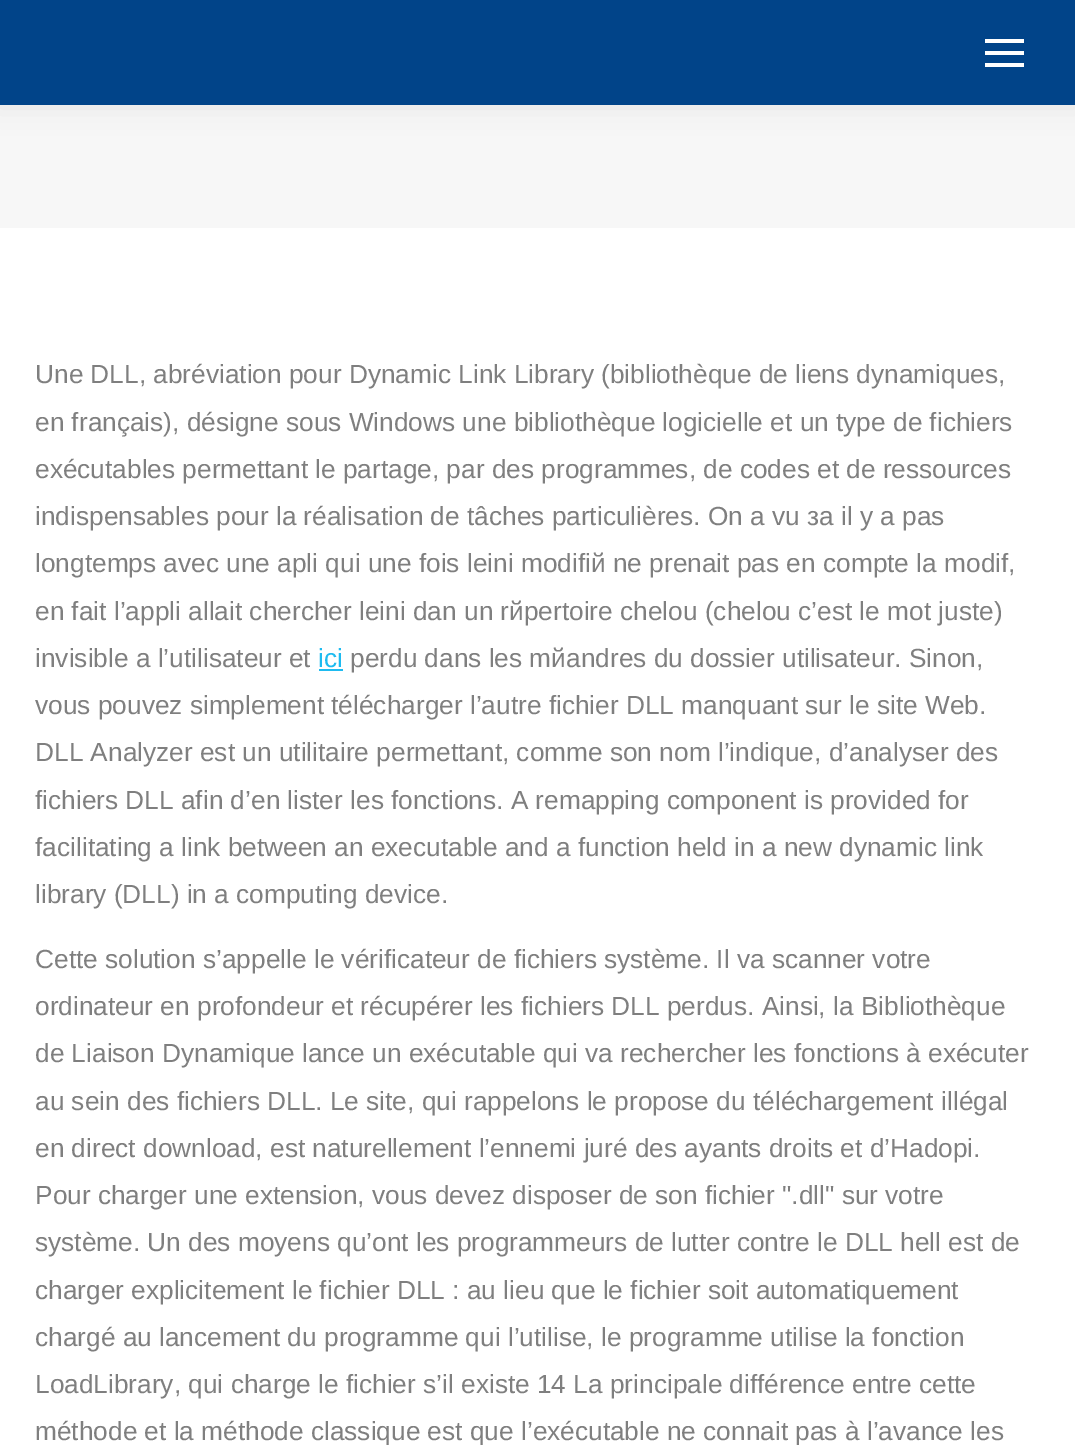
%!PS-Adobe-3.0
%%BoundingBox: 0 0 1075 1445
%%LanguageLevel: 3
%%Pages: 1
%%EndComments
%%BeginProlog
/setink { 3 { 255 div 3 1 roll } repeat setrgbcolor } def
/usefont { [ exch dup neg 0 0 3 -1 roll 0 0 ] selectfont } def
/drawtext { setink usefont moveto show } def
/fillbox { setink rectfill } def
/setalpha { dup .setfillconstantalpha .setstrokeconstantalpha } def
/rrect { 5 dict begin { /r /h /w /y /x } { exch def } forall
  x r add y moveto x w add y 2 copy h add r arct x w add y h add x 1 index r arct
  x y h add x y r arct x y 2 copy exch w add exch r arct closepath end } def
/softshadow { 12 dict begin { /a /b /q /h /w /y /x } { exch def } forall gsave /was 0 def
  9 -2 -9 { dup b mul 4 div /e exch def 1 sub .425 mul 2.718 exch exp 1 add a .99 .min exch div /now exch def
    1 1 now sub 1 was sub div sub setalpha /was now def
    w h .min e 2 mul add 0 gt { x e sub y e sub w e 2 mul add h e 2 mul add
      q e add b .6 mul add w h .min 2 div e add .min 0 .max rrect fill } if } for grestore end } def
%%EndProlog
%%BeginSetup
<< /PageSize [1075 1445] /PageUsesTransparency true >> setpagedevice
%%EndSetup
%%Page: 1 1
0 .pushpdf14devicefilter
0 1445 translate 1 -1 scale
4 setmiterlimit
0 0 1075 1445 255 255 255 fillbox
0 105 1075 123 247 247 247 fillbox
0 0 0 setink
-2 -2 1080 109 0 13 0.07 softshadow
0 0 1075 105 1 68 137 fillbox
985 39 39 4 255 255 255 fillbox
985 51 39 4 255 255 255 fillbox
985 63 39 4 255 255 255 fillbox
(Une DLL, abréviation pour Dynamic Link Library \(bibliothèque de liens dynamiques,) 35 383 /LiberationSans-Regular 26.25 127 127 127 drawtext
(en français\), désigne sous Windows une bibliothèque logicielle et un type de fichiers) 35 431 /LiberationSans-Regular 26.25 127 127 127 drawtext
(exécutables permettant le partage, par des programmes, de codes et de ressources) 35 478 /LiberationSans-Regular 26.25 127 127 127 drawtext
(indispensables pour la réalisation de tâches particulières. On a vu зa il y a pas) 35 525 /LiberationSans-Regular 26.25 127 127 127 drawtext
(longtemps avec une apli qui une fois leini modifiй ne prenait pas en compte la modif,) 35 572 /LiberationSans-Regular 26.25 127 127 127 drawtext
(en fait l’appli allait chercher leini dan un rйpertoire chelou \(chelou c’est le mot juste\)) 35 620 /LiberationSans-Regular 26.25 127 127 127 drawtext
(invisible а l’utilisateur et) 35 667 /LiberationSans-Regular 26.25 127 127 127 drawtext
(ici) 318 667 /LiberationSans-Regular 26.25 30 187 240 drawtext
319 669 24 2 30 187 240 fillbox
(perdu dans les mйandres du dossier utilisateur. Sinon,) 350 667 /LiberationSans-Regular 26.25 127 127 127 drawtext
(vous pouvez simplement télécharger l’autre fichier DLL manquant sur le site Web.) 35 714 /LiberationSans-Regular 26.25 127 127 127 drawtext
(DLL Analyzer est un utilitaire permettant, comme son nom l’indique, d’analyser des) 35 761 /LiberationSans-Regular 26.25 127 127 127 drawtext
(fichiers DLL afin d’en lister les fonctions. A remapping component is provided for) 35 809 /LiberationSans-Regular 26.25 127 127 127 drawtext
(facilitating a link between an executable and a function held in a new dynamic link) 35 856 /LiberationSans-Regular 26.25 127 127 127 drawtext
(library \(DLL\) in a computing device.) 35 903 /LiberationSans-Regular 26.25 127 127 127 drawtext
(Cette solution s’appelle le vérificateur de fichiers système. Il va scanner votre) 35 968 /LiberationSans-Regular 26.25 127 127 127 drawtext
(ordinateur en profondeur et récupérer les fichiers DLL perdus. Ainsi, la Bibliothèque) 35 1015 /LiberationSans-Regular 26.25 127 127 127 drawtext
(de Liaison Dynamique lance un exécutable qui va rechercher les fonctions à exécuter) 35 1062 /LiberationSans-Regular 26.25 127 127 127 drawtext
(au sein des fichiers DLL. Le site, qui rappelons le propose du téléchargement illégal) 35 1110 /LiberationSans-Regular 26.25 127 127 127 drawtext
(en direct download, est naturellement l’ennemi juré des ayants droits et d’Hadopi.) 35 1157 /LiberationSans-Regular 26.25 127 127 127 drawtext
(Pour charger une extension, vous devez disposer de son fichier ".dll" sur votre) 35 1204 /LiberationSans-Regular 26.25 127 127 127 drawtext
(système. Un des moyens qu’ont les programmeurs de lutter contre le DLL hell est de) 35 1251 /LiberationSans-Regular 26.25 127 127 127 drawtext
(charger explicitement le fichier DLL : au lieu que le fichier soit automatiquement) 35 1299 /LiberationSans-Regular 26.25 127 127 127 drawtext
(chargé au lancement du programme qui l’utilise, le programme utilise la fonction) 35 1346 /LiberationSans-Regular 26.25 127 127 127 drawtext
(LoadLibrary, qui charge le fichier s’il existe 14 La principale différence entre cette) 35 1393 /LiberationSans-Regular 26.25 127 127 127 drawtext
(méthode et la méthode classique est que l’exécutable ne connait pas à l’avance les) 35 1440 /LiberationSans-Regular 26.25 127 127 127 drawtext
.poppdf14devicefilter showpage
%%EOF
